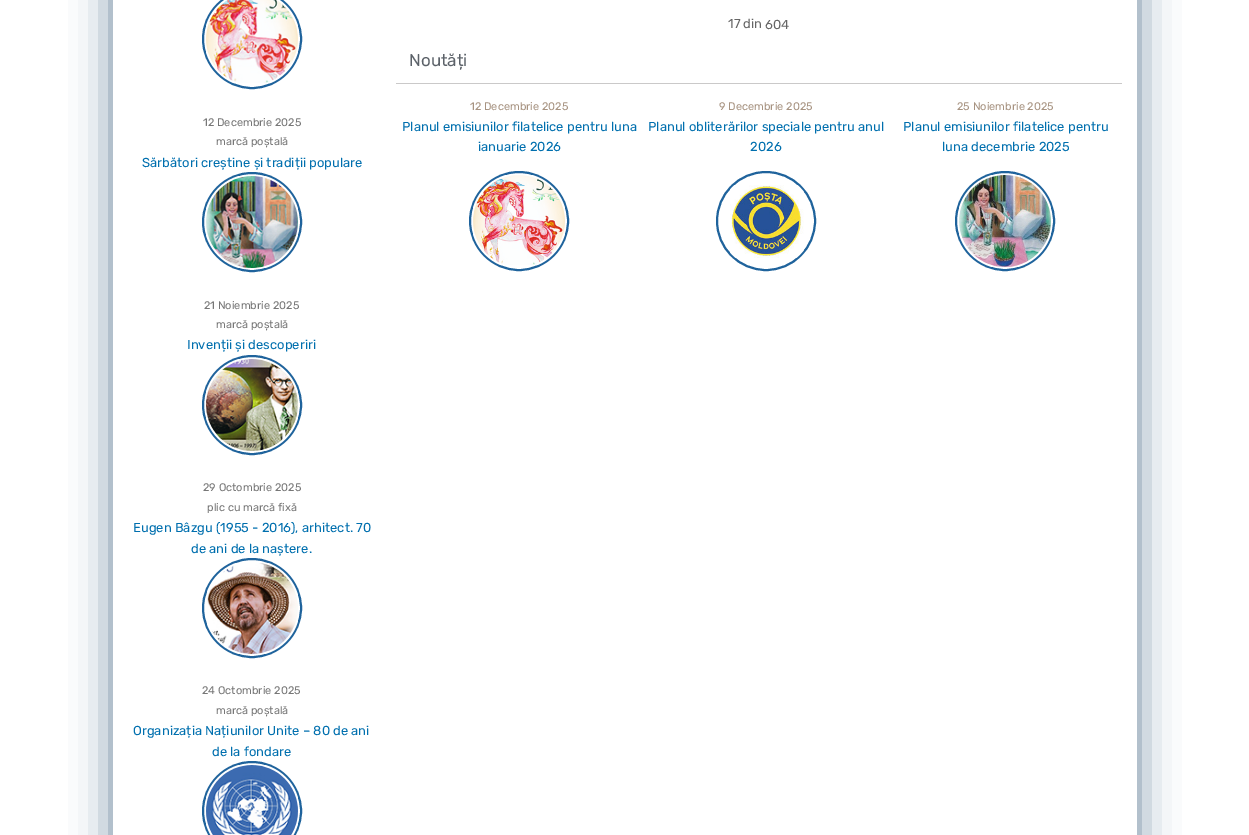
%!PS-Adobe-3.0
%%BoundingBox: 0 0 1249 835
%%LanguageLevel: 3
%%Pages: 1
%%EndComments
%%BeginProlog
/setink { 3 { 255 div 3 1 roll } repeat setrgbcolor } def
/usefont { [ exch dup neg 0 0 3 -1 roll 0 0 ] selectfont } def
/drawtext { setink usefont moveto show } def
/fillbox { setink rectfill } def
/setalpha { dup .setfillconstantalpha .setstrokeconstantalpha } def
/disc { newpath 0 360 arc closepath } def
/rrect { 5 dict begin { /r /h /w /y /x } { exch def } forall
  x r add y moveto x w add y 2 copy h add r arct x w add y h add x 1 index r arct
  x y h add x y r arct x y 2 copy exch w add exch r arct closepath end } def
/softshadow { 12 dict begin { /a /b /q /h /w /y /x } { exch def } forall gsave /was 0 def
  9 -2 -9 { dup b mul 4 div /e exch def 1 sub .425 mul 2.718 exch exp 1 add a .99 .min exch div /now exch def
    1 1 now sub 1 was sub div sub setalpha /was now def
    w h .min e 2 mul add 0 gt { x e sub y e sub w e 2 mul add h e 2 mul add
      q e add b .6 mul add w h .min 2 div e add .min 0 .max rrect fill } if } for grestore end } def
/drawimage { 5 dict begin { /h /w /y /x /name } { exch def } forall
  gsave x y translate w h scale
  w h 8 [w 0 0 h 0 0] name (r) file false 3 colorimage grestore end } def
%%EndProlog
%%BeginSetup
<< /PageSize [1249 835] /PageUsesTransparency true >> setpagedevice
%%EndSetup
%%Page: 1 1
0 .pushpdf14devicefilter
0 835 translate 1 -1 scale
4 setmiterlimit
0 0 1249 835 255 255 255 fillbox
gsave
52 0 moveto 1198 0 lineto 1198 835 lineto 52 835 lineto closepath 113 -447 moveto 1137 -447 lineto 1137 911 lineto 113 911 lineto closepath eoclip newpath
99 127 151 setink
113 -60 1024 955 0 20 1 softshadow
grestore
(17 din) 728 28 /Rubik-Regular 13 102 102 102 drawtext
(604) 765 29 /Rubik-Regular 13 102 102 102 drawtext
396 83 726 1 202 201 201 fillbox
(Noutăți) 409 66 /Rubik-Regular 17 92 98 105 drawtext
(12 Decembrie 2025) 470 110 /Rubik-Regular 11 167 147 129 drawtext
(Planul emisiunilor filatelice pentru luna) 402 131 /Rubik-Regular 13 0 111 174 drawtext
(ianuarie 2026) 478 151 /Rubik-Regular 13 0 111 174 drawtext
31 99 156 setink
2 setlinewidth
519 221 49 disc stroke
(assets/img1.rgb) 473 175 92 90 drawimage
(9 Decembrie 2025) 719 110 /Rubik-Regular 11 167 147 129 drawtext
(Planul obliterărilor speciale pentru anul) 648 131 /Rubik-Regular 13 0 111 174 drawtext
(2026) 750 151 /Rubik-Regular 13 0 111 174 drawtext
31 99 156 setink
766 221 49 disc stroke
(assets/img2.rgb) 730 185 74 73 drawimage
(25 Noiembrie 2025) 957 110 /Rubik-Regular 11 167 147 129 drawtext
(Planul emisiunilor filatelice pentru) 903 131 /Rubik-Regular 13 0 111 174 drawtext
(luna decembrie 2025) 942 151 /Rubik-Regular 13 0 111 174 drawtext
31 99 156 setink
1005 221 49 disc stroke
(assets/img3.rgb) 959 175 92 92 drawimage
252 39 49 disc stroke
(assets/img4.rgb) 206 0 92 83 drawimage
(12 Decembrie 2025) 203 126 /Rubik-Regular 11 119 119 119 drawtext
(marcă poștală) 216 145 /Rubik-Regular 11 119 119 119 drawtext
(Sărbători creștine și tradiții populare) 142 167 /Rubik-Regular 13 0 111 174 drawtext
31 99 156 setink
252 222 49 disc stroke
(assets/img5.rgb) 206 176 92 92 drawimage
(21 Noiembrie 2025) 204 309 /Rubik-Regular 11 119 119 119 drawtext
(marcă poștală) 216 328 /Rubik-Regular 11 119 119 119 drawtext
(Invenții și descoperiri) 187 349 /Rubik-Regular 13 0 111 174 drawtext
31 99 156 setink
252 405 49 disc stroke
(assets/img6.rgb) 206 359 92 92 drawimage
(29 Octombrie 2025) 203 491 /Rubik-Regular 11 119 119 119 drawtext
(plic cu marcă fixă) 207 511 /Rubik-Regular 11 119 119 119 drawtext
(Eugen Bâzgu \(1955 - 2016\), arhitect. 70) 133 532 /Rubik-Regular 13 0 111 174 drawtext
(de ani de la naștere.) 191 553 /Rubik-Regular 13 0 111 174 drawtext
31 99 156 setink
252 608 49 disc stroke
(assets/img7.rgb) 207 563 91 91 drawimage
(24 Octombrie 2025) 202 694 /Rubik-Regular 11 119 119 119 drawtext
(marcă poștală) 216 714 /Rubik-Regular 11 119 119 119 drawtext
(Organizația Națiunilor Unite – 80 de ani) 133 735 /Rubik-Regular 13 0 111 174 drawtext
(de la fondare) 212 756 /Rubik-Regular 13 0 111 174 drawtext
31 99 156 setink
252 811 49 disc stroke
(assets/img8.rgb) 206 765 92 70 drawimage
.poppdf14devicefilter showpage
%%EOF
